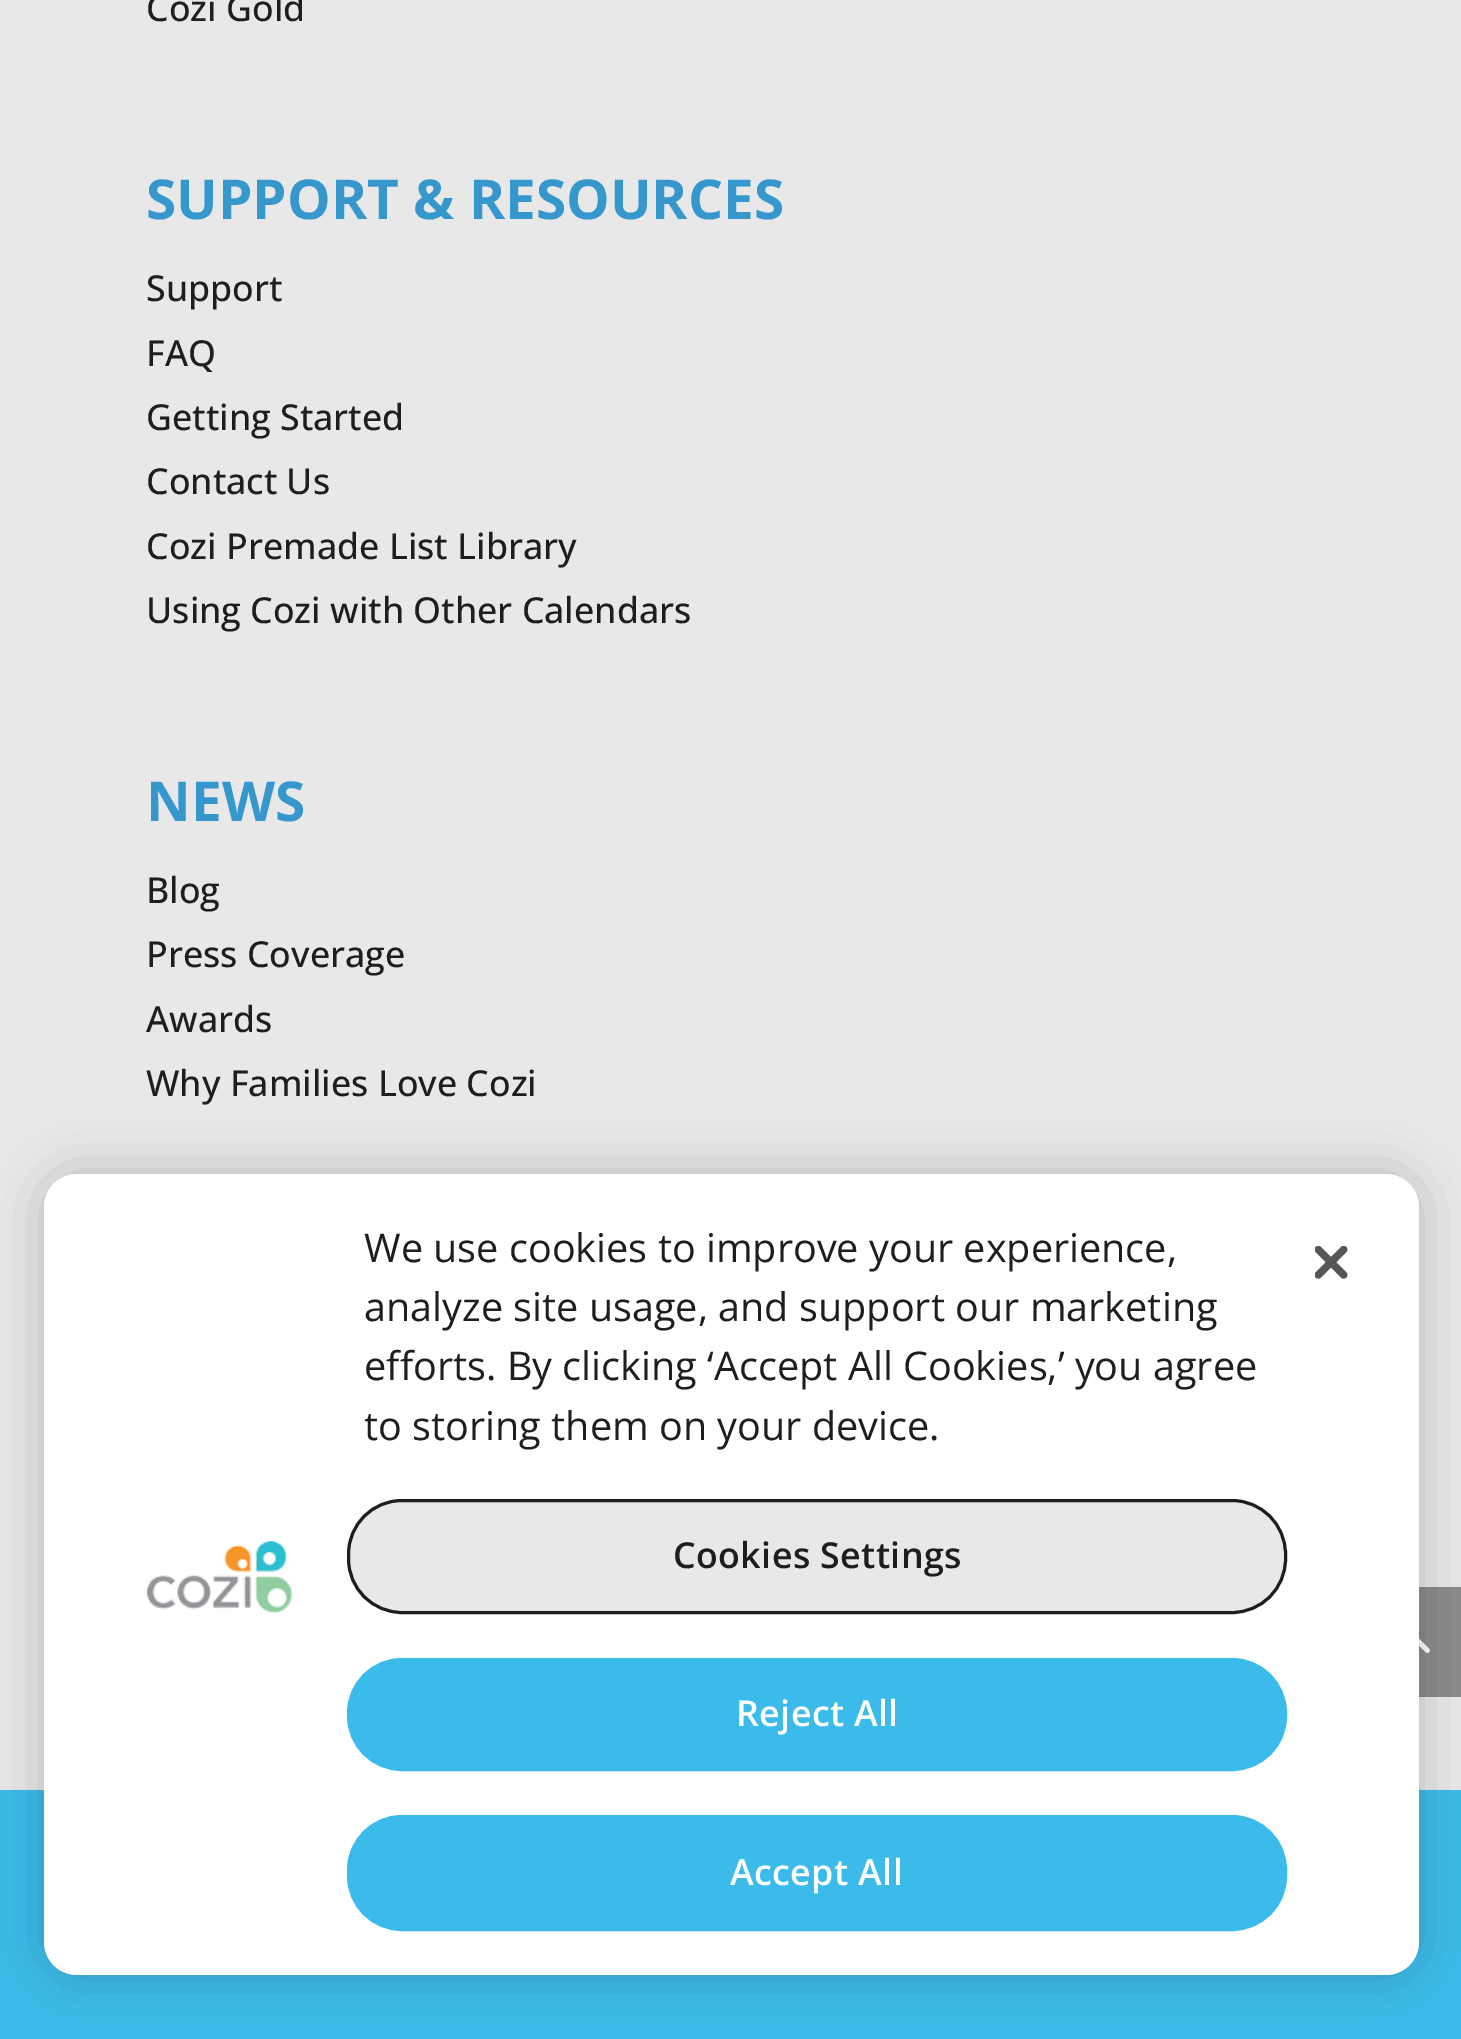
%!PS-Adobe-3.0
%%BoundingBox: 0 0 1461 2039
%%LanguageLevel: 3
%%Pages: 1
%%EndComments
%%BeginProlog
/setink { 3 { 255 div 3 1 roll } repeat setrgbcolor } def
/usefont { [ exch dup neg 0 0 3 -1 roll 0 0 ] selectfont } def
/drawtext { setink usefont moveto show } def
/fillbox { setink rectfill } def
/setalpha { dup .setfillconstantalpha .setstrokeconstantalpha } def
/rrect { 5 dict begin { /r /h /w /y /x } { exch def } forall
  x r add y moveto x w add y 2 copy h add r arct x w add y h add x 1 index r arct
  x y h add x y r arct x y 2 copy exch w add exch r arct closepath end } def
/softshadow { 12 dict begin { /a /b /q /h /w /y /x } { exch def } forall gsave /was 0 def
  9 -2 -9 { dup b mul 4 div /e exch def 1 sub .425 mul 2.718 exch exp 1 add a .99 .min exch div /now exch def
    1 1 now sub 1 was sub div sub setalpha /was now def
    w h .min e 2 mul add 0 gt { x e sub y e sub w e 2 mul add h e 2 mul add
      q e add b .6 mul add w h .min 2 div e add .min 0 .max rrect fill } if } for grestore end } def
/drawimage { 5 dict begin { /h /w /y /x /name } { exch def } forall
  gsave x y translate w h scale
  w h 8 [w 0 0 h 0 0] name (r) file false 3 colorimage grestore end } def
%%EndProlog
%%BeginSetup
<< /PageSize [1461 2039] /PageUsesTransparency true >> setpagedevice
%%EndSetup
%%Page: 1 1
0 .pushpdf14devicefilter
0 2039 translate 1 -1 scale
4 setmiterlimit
0 0 1461 2039 232 232 232 fillbox
(Cozi Gold) 146 21 /OpenSans-Medium 35.75 30 30 30 drawtext
(SUPPORT & RESOURCES) 146 219 /OpenSans-Bold 55 54 151 205 drawtext
(Support) 146 301 /OpenSans-Medium 35.75 30 30 30 drawtext
(FAQ) 146 366 /OpenSans-Medium 35.75 30 30 30 drawtext
(Getting Started) 146 430 /OpenSans-Medium 35.75 30 30 30 drawtext
(Contact Us) 146 494 /OpenSans-Medium 35.75 30 30 30 drawtext
(Cozi Premade List Library) 146 559 /OpenSans-Medium 35.75 30 30 30 drawtext
(Using Cozi with Other Calendars) 146 623 /OpenSans-Medium 35.75 30 30 30 drawtext
(NEWS) 146 821 /OpenSans-Bold 55 54 151 205 drawtext
(Blog) 146 903 /OpenSans-Medium 35.75 30 30 30 drawtext
(Press Coverage) 146 967 /OpenSans-Medium 35.75 30 30 30 drawtext
(Awards) 146 1032 /OpenSans-Medium 35.75 30 30 30 drawtext
(Why Families Love Cozi) 146 1096 /OpenSans-Medium 35.75 30 30 30 drawtext
0 1790 1461 249 59 187 233 fillbox
1419 1587 42 110 139 139 139 fillbox
(assets/img1.rgb) 1419 1638 11 15 drawimage
0 0 0 setink
44 1174 1375 801 33 25 0.2 softshadow
255 255 255 setink
44 1174 1375 801 33 rrect fill
(We use cookies to improve your experience,) 364 1262 /OpenSans-Regular 39.6 30 30 30 drawtext
(analyze site usage, and support our marketing) 364 1321 /OpenSans-Regular 39.6 30 30 30 drawtext
(efforts. By clicking ‘Accept All Cookies,’ you agree) 364 1380 /OpenSans-Regular 39.6 30 30 30 drawtext
(to storing them on your device.) 364 1440 /OpenSans-Regular 39.6 30 30 30 drawtext
(assets/img2.rgb) 147 1541 146 72 drawimage
232 232 232 setink
348.5 1500.5 937 112 53.5 rrect gsave fill grestore
30 30 30 setink
3 setlinewidth
stroke
/OpenSans-SemiBold 35.75 usefont
673 1568 moveto 0.4 0 (Cookies Settings) ashow
59 187 233 setink
348.5 1659.5 937 110 53.5 rrect gsave fill grestore
stroke
255 255 255 setink
736 1726 moveto 0.4 0 (Reject All) ashow
59 187 233 setink
348.5 1816.5 937 113 53.5 rrect gsave fill grestore
stroke
255 255 255 setink
730 1885 moveto 0.4 0 (Accept All) ashow
(assets/img3.rgb) 1315 1246 33 33 drawimage
.poppdf14devicefilter showpage
%%EOF
